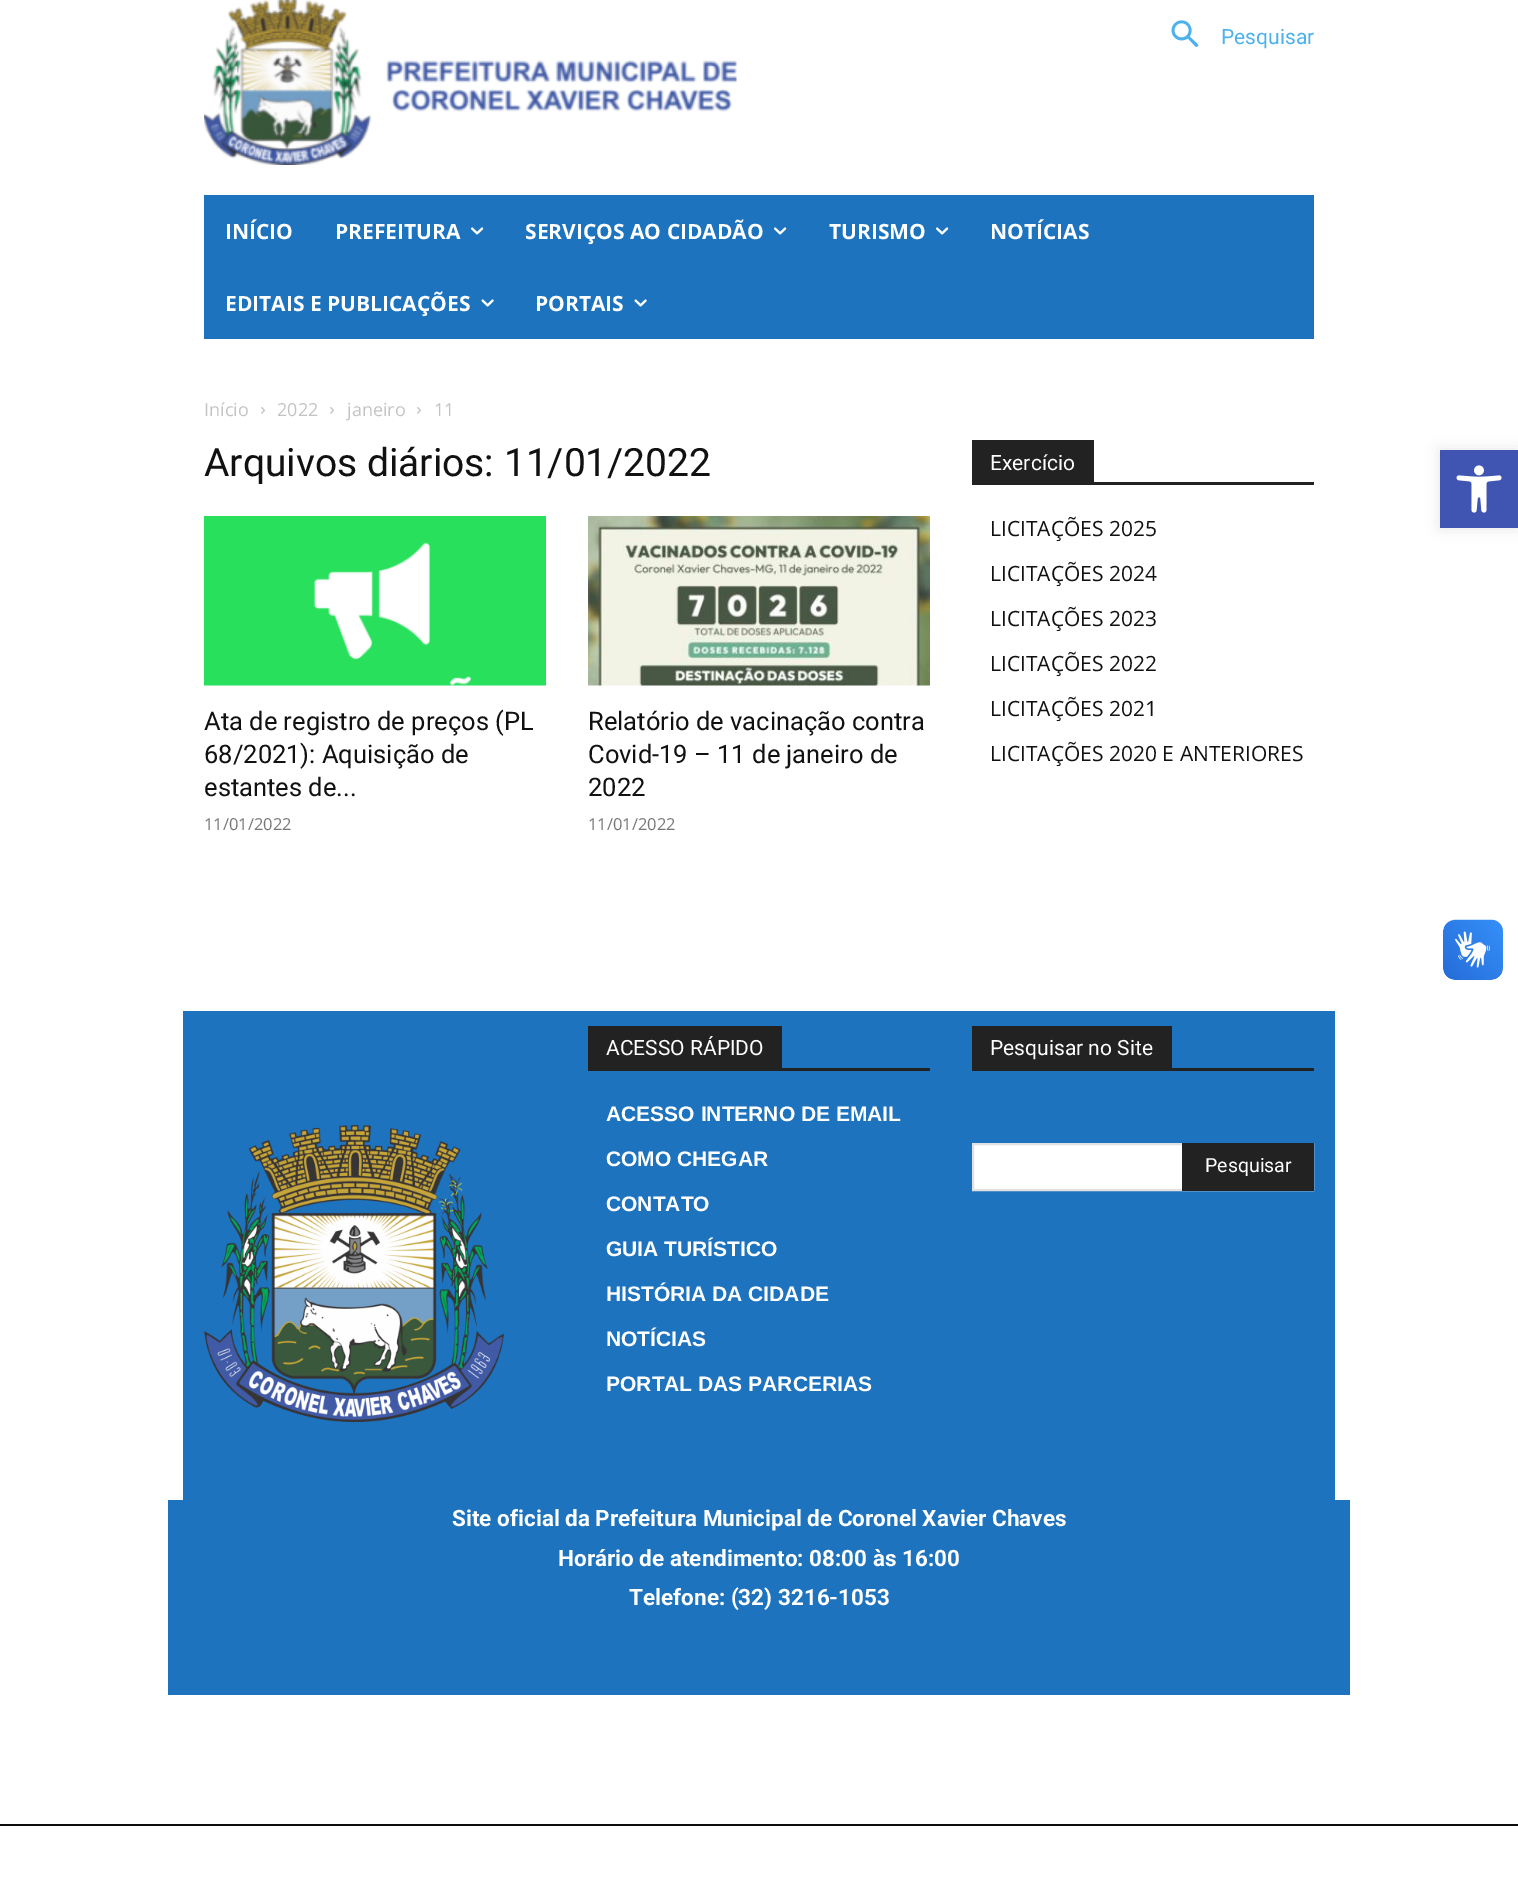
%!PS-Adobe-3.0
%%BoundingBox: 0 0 1518 1898
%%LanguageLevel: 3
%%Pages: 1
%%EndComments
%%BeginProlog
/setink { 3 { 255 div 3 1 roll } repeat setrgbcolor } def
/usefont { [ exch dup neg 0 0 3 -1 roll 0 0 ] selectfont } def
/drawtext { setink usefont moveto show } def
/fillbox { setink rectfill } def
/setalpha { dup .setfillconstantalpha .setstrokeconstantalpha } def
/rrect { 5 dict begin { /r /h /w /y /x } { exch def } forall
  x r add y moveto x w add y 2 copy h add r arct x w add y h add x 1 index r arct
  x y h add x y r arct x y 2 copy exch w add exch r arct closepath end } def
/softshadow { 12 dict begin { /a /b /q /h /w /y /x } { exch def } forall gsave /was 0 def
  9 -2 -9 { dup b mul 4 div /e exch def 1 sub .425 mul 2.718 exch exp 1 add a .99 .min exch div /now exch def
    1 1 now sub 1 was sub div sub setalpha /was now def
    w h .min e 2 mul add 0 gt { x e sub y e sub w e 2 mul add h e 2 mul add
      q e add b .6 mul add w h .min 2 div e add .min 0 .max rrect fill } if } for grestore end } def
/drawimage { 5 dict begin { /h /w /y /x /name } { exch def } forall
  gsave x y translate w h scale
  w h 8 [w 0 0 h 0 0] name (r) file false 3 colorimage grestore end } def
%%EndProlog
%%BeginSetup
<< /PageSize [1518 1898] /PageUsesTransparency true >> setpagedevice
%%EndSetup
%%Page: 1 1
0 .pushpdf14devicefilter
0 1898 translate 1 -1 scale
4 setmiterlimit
0 0 1518 1898 255 255 255 fillbox
(assets/img1.rgb) 204 0 533 165 drawimage
(assets/img2.rgb) 1171 20 28 27 drawimage
(Pesquisar) 1221 44 /Roboto-Regular 21 77 178 236 drawtext
204 195 1110 144 30 115 190 fillbox
(INÍCIO) 225 239 /OpenSans-Bold 21 255 255 255 drawtext
(PREFEITURA) 335 239 /OpenSans-Bold 21 255 255 255 drawtext
(assets/img3.rgb) 471 227 13 8 drawimage
(SERVIÇOS AO CIDADÃO) 525 239 /OpenSans-Bold 21 255 255 255 drawtext
(assets/img3.rgb) 774 227 13 8 drawimage
(TURISMO) 829 239 /OpenSans-Bold 21 255 255 255 drawtext
(assets/img3.rgb) 936 227 13 8 drawimage
(NOTÍCIAS) 990 239 /OpenSans-Bold 21 255 255 255 drawtext
(EDITAIS E PUBLICAÇÕES) 225 311 /OpenSans-Bold 21 255 255 255 drawtext
(assets/img4.rgb) 481 299 13 8 drawimage
(PORTAIS) 535 311 /OpenSans-Bold 21 255 255 255 drawtext
(assets/img4.rgb) 634 299 13 8 drawimage
(Início) 204 416 /OpenSans-Regular 18 195 195 195 drawtext
(assets/img5.rgb) 261 407 4 7 drawimage
(2022) 277 416 /OpenSans-Regular 18 195 195 195 drawtext
(assets/img5.rgb) 330 407 4 7 drawimage
(janeiro) 347 416 /OpenSans-Regular 18 195 195 195 drawtext
(assets/img5.rgb) 417 407 4 7 drawimage
(11) 434 416 /OpenSans-Regular 18 195 195 195 drawtext
(Arquivos diários: 11/01/2022) 204 476 /Roboto-Regular 39 17 17 17 drawtext
(assets/img6.rgb) 204 516 342 170 drawimage
(Ata de registro de preços \(PL) 204 730 /Roboto-Regular 25.5 17 17 17 drawtext
(68/2021\): Aquisição de) 204 763 /Roboto-Regular 25.5 17 17 17 drawtext
(estantes de...) 204 796 /Roboto-Regular 25.5 17 17 17 drawtext
(11/01/2022) 204 830 /OpenSans-Regular 16.5 118 118 118 drawtext
(assets/img7.rgb) 588 516 342 170 drawimage
(Relatório de vacinação contra) 588 730 /Roboto-Regular 25.5 17 17 17 drawtext
(Covid-19 – 11 de janeiro de) 588 763 /Roboto-Regular 25.5 17 17 17 drawtext
(2022) 588 796 /Roboto-Regular 25.5 17 17 17 drawtext
(11/01/2022) 588 830 /OpenSans-Regular 16.5 118 118 118 drawtext
972 482 342 3 34 34 34 fillbox
972 440 122 42 34 34 34 fillbox
(Exercício) 990 470 /Roboto-Regular 21 255 255 255 drawtext
(LICITAÇÕES 2025) 990 536 /OpenSans-Regular 21 17 17 17 drawtext
(LICITAÇÕES 2024) 990 581 /OpenSans-Regular 21 17 17 17 drawtext
(LICITAÇÕES 2023) 990 626 /OpenSans-Regular 21 17 17 17 drawtext
(LICITAÇÕES 2022) 990 671 /OpenSans-Regular 21 17 17 17 drawtext
(LICITAÇÕES 2021) 990 716 /OpenSans-Regular 21 17 17 17 drawtext
(LICITAÇÕES 2020 E ANTERIORES) 990 761 /OpenSans-Regular 21 17 17 17 drawtext
183 1011 1152 489 30 115 190 fillbox
588 1068 342 3 34 34 34 fillbox
588 1026 194 42 34 34 34 fillbox
(ACESSO RÁPIDO) 606 1055 /Roboto-Regular 21 255 255 255 drawtext
(ACESSO INTERNO DE EMAIL) 606 1121 /LiberationSans-Bold 21 255 255 255 drawtext
(COMO CHEGAR) 606 1166 /LiberationSans-Bold 21 255 255 255 drawtext
(CONTATO) 606 1211 /LiberationSans-Bold 21 255 255 255 drawtext
(GUIA TURÍSTICO) 606 1256 /LiberationSans-Bold 21 255 255 255 drawtext
(HISTÓRIA DA CIDADE) 606 1301 /LiberationSans-Bold 21 255 255 255 drawtext
(NOTÍCIAS) 606 1346 /LiberationSans-Bold 21 255 255 255 drawtext
(PORTAL DAS PARCERIAS) 606 1391 /LiberationSans-Bold 21 255 255 255 drawtext
972 1068 342 3 34 34 34 fillbox
972 1026 200 42 34 34 34 fillbox
(Pesquisar no Site) 990 1055 /Roboto-Regular 21 255 255 255 drawtext
974 1145 208 44 255 255 255 fillbox
225 225 225 setink
2 setlinewidth
973 1144 340 46 rectstroke
1182 1143 132 48 34 34 34 fillbox
(Pesquisar) 1205 1172 /Roboto-Regular 19.5 255 255 255 drawtext
(assets/img8.rgb) 204 1125 300 297 drawimage
168 1500 1182 195 30 115 190 fillbox
(Site oficial da Prefeitura Municipal de Coronel Xavier Chaves) 452 1526 /Roboto-Bold 22.5 255 255 255 drawtext
(Horário de atendimento: 08:00 às 16:00) 558 1566 /Roboto-Bold 22.5 255 255 255 drawtext
(Telefone: \(32\) 3216-1053) 629 1605 /Roboto-Bold 22.5 255 255 255 drawtext
0 1824 1518 2 13 13 13 fillbox
0 0 0 setink
1440 450 78 78 0 7.5 0.1 softshadow
1440 450 78 78 64 84 178 fillbox
(assets/img9.rgb) 1456 465 46 48 drawimage
(assets/img10.rgb) 1443 919 60 61 drawimage
(assets/img11.rgb) 1443 920 60 60 drawimage
.poppdf14devicefilter showpage
%%EOF
